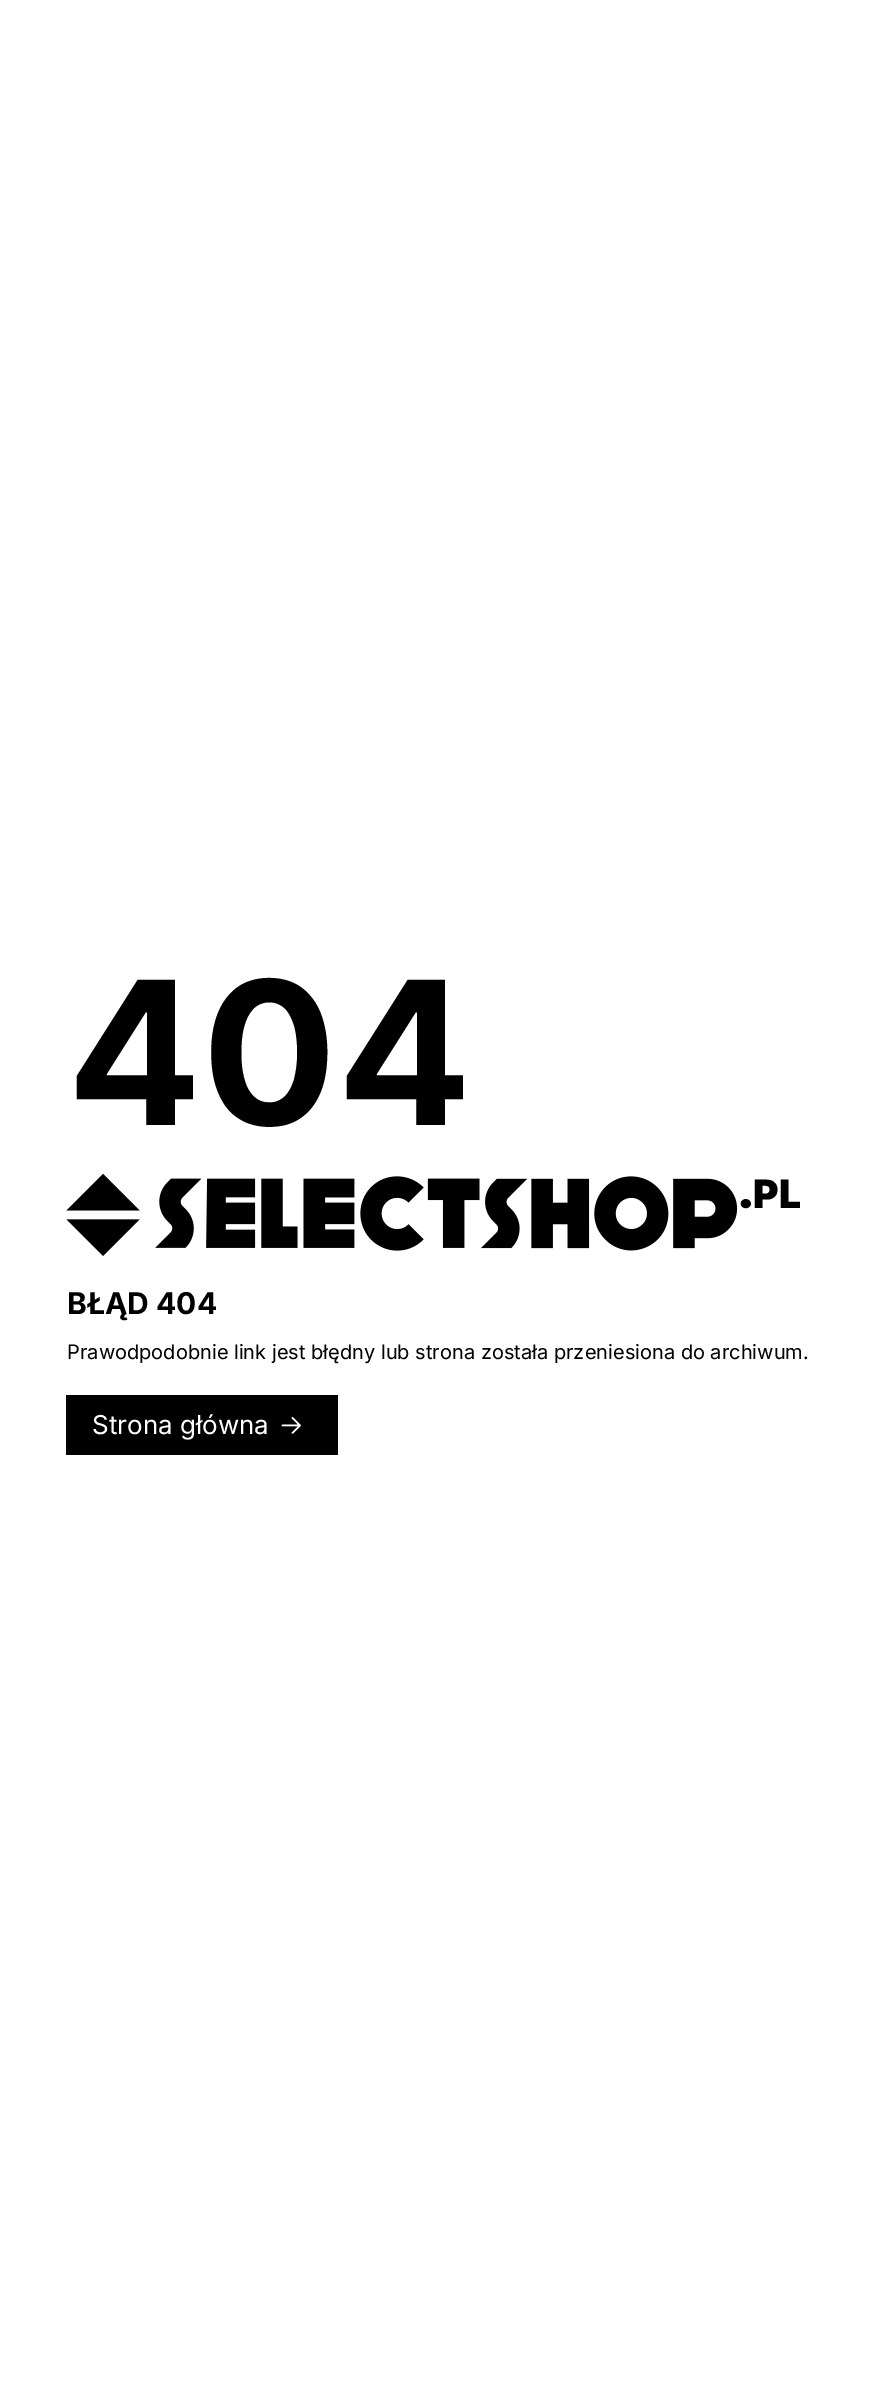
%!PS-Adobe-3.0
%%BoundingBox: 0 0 875 2386
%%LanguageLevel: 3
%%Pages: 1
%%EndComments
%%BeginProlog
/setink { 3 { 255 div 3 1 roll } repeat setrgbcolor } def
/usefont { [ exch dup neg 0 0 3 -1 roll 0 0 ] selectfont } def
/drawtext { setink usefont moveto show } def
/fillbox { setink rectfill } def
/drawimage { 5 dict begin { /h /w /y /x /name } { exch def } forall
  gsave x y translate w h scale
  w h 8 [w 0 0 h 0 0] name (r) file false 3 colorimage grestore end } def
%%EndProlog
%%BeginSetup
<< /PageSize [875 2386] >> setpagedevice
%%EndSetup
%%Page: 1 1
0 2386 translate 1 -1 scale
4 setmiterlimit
0 0 875 2386 255 255 255 fillbox
(404) 67 1125 /Inter-Bold 200 0 0 0 drawtext
(assets/img1.rgb) 66 1174 685 82 drawimage
(PL) 753 1208 /Inter-Black 39 0 0 0 drawtext
(BŁĄD 404) 67 1314 /Inter-Bold 30 0 0 0 drawtext
(Prawodpodobnie link jest błędny lub strona została przeniesiona do archiwum.) 67 1359 /Inter-Regular 20 0 0 0 drawtext
66 1395 272 60 0 0 0 fillbox
(Strona główna) 92 1434 /Inter-Regular 26 255 255 255 drawtext
(assets/img2.rgb) 281 1417 20 17 drawimage
showpage
%%EOF
